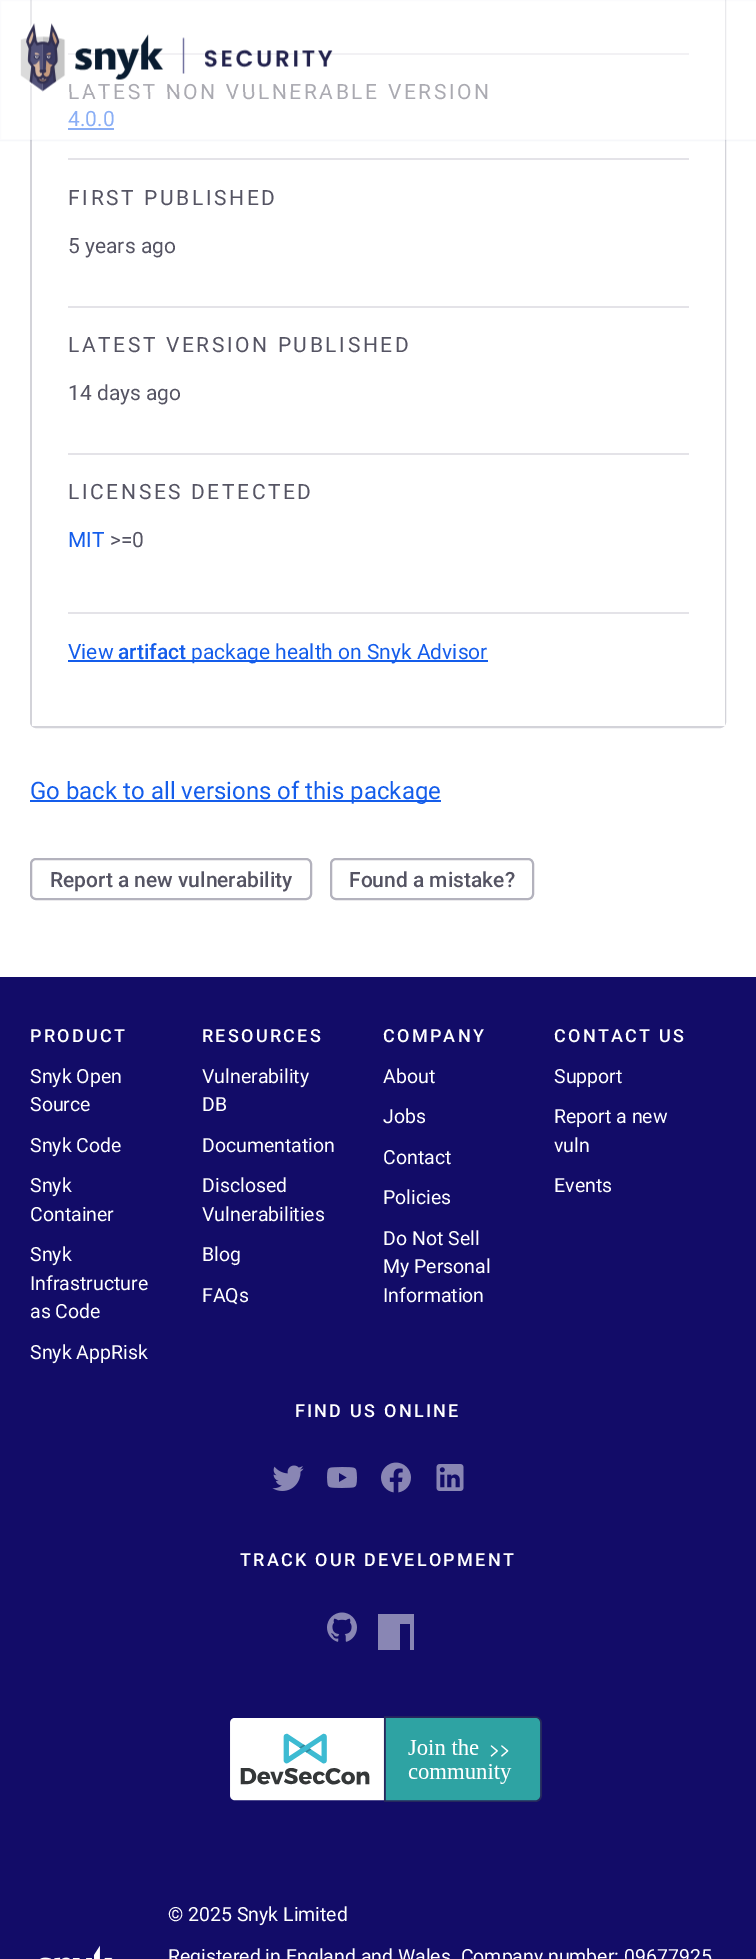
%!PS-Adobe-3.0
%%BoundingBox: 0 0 756 1959
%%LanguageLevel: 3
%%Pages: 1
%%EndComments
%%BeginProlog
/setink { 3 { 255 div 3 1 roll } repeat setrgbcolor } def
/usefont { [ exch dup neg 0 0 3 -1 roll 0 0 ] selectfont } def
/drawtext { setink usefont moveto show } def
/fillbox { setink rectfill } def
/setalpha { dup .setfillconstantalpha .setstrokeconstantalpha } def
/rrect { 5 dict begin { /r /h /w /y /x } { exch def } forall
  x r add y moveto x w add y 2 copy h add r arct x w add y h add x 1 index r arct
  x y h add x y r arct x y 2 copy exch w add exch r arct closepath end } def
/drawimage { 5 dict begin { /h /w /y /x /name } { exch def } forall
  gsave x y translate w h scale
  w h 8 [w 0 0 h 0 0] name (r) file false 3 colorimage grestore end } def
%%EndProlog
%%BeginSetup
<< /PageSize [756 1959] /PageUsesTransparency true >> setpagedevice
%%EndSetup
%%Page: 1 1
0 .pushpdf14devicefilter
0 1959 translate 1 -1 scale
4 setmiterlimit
0 0 756 1959 255 255 255 fillbox
211 211 217 setink
2 setlinewidth
31 -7 694 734 5 rrect stroke
32 0 693 726 255 255 255 fillbox
68 53 621 2 228 227 232 fillbox
68 128 46 2 20 93 235 fillbox
0.04 setalpha
14 63 126 setink
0 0 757 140 rectstroke
/Roboto-Regular 21 usefont
1 setalpha
85 84 99 setink
68 99 moveto 2.6 0 (LATEST NON VULNERABLE VERSION) ashow
(4.0.0) 68 126 /Roboto-Regular 21 20 93 235 drawtext
0.5 setalpha
0 0 756 140 255 255 255 fillbox
1 setalpha
(assets/img1.rgb) 20 23 313 69 drawimage
68 158 621 2 228 227 232 fillbox
68 306 621 2 228 227 232 fillbox
85 84 99 setink
68 205 moveto 2.6 0 (FIRST PUBLISHED) ashow
(5 years ago) 68 253 /Roboto-Regular 21 85 84 99 drawtext
68 453 621 2 228 227 232 fillbox
85 84 99 setink
68 352 moveto 2.6 0 (LATEST VERSION PUBLISHED) ashow
(14 days ago) 68 400 /Roboto-Regular 21 85 84 99 drawtext
68 612 621 2 228 227 232 fillbox
85 84 99 setink
68 499 moveto 2.6 0 (LICENSES DETECTED) ashow
(MIT) 68 547 /Roboto-Regular 21 20 93 235 drawtext
(>=0) 110 547 /Roboto-Regular 21 85 84 99 drawtext
(View) 68 659 /Roboto-Regular 21 20 93 235 drawtext
(artifact) 118 659 /Roboto-Medium 21 20 93 235 drawtext
68 660 420 2 20 93 235 fillbox
(package health on Snyk Advisor) 191 659 /Roboto-Regular 21 20 93 235 drawtext
30 800 411 2 20 93 235 fillbox
(Go back to all versions of this package) 30 799 /Roboto-Regular 24 20 93 235 drawtext
179 178 189 setink
31 859 280 40 5 rrect stroke
(Report a new vulnerability) 50 887 /Roboto-Medium 21 85 84 99 drawtext
179 178 189 setink
331 859 202 40 5 rrect stroke
(Found a mistake?) 349 887 /Roboto-Medium 21 85 84 99 drawtext
0 977 756 982 18 12 104 fillbox
/Roboto-Medium 18 usefont
255 255 255 setink
30 1042 moveto 2.25 0 (PRODUCT) ashow
(Snyk Open) 30 1083 /Roboto-Regular 19.5 255 255 255 drawtext
(Source) 30 1111 /Roboto-Regular 19.5 255 255 255 drawtext
(Snyk Code) 30 1152 /Roboto-Regular 19.5 255 255 255 drawtext
(Snyk) 30 1192 /Roboto-Regular 19.5 255 255 255 drawtext
(Container) 30 1221 /Roboto-Regular 19.5 255 255 255 drawtext
(Snyk) 30 1261 /Roboto-Regular 19.5 255 255 255 drawtext
(Infrastructure) 30 1290 /Roboto-Regular 19.5 255 255 255 drawtext
(as Code) 30 1318 /Roboto-Regular 19.5 255 255 255 drawtext
(Snyk AppRisk) 30 1359 /Roboto-Regular 19.5 255 255 255 drawtext
/Roboto-Medium 18 usefont
202 1042 moveto 2.25 0 (RESOURCES) ashow
(Vulnerability) 202 1083 /Roboto-Regular 19.5 255 255 255 drawtext
(DB) 202 1111 /Roboto-Regular 19.5 255 255 255 drawtext
(Documentation) 202 1152 /Roboto-Regular 19.5 255 255 255 drawtext
(Disclosed) 202 1192 /Roboto-Regular 19.5 255 255 255 drawtext
(Vulnerabilities) 202 1221 /Roboto-Regular 19.5 255 255 255 drawtext
(Blog) 202 1261 /Roboto-Regular 19.5 255 255 255 drawtext
(FAQs) 202 1302 /Roboto-Regular 19.5 255 255 255 drawtext
/Roboto-Medium 18 usefont
383 1042 moveto 2.25 0 (COMPANY) ashow
(About) 383 1083 /Roboto-Regular 19.5 255 255 255 drawtext
(Jobs) 383 1123 /Roboto-Regular 19.5 255 255 255 drawtext
(Contact) 383 1164 /Roboto-Regular 19.5 255 255 255 drawtext
(Policies) 383 1204 /Roboto-Regular 19.5 255 255 255 drawtext
(Do Not Sell) 383 1245 /Roboto-Regular 19.5 255 255 255 drawtext
(My Personal) 383 1273 /Roboto-Regular 19.5 255 255 255 drawtext
(Information) 383 1302 /Roboto-Regular 19.5 255 255 255 drawtext
/Roboto-Medium 18 usefont
554 1042 moveto 2.25 0 (CONTACT US) ashow
(Support) 554 1083 /Roboto-Regular 19.5 255 255 255 drawtext
(Report a new) 554 1123 /Roboto-Regular 19.5 255 255 255 drawtext
(vuln) 554 1152 /Roboto-Regular 19.5 255 255 255 drawtext
(Events) 554 1192 /Roboto-Regular 19.5 255 255 255 drawtext
/Roboto-Medium 18 usefont
295 1417 moveto 2.25 0 (FIND US ONLINE) ashow
(assets/img2.rgb) 272 1465 32 26 drawimage
(assets/img3.rgb) 327 1467 30 21 drawimage
(assets/img4.rgb) 381 1462 30 31 drawimage
(assets/img5.rgb) 436 1464 28 27 drawimage
240 1566 moveto 2.25 0 (TRACK OUR DEVELOPMENT) ashow
(assets/img6.rgb) 327 1612 30 30 drawimage
gsave
378 1614 36 36 rectclip
137 134 180 setink
378 1658 moveto 400 1658 lineto 400 1624 lineto 410 1624 lineto 410 1658 lineto 420 1658 lineto 420 1614 lineto 378 1614 lineto closepath fill
grestore
(assets/img7.rgb) 230 1716 312 86 drawimage
(assets/img8.rgb) 40 1945 73 14 drawimage
(© 2025 Snyk Limited) 168 1921 /Roboto-Regular 19.5 255 255 255 drawtext
(Registered in England and Wales. Company number: 09677925) 168 1963 /Roboto-Regular 19.5 255 255 255 drawtext
.poppdf14devicefilter showpage
%%EOF
